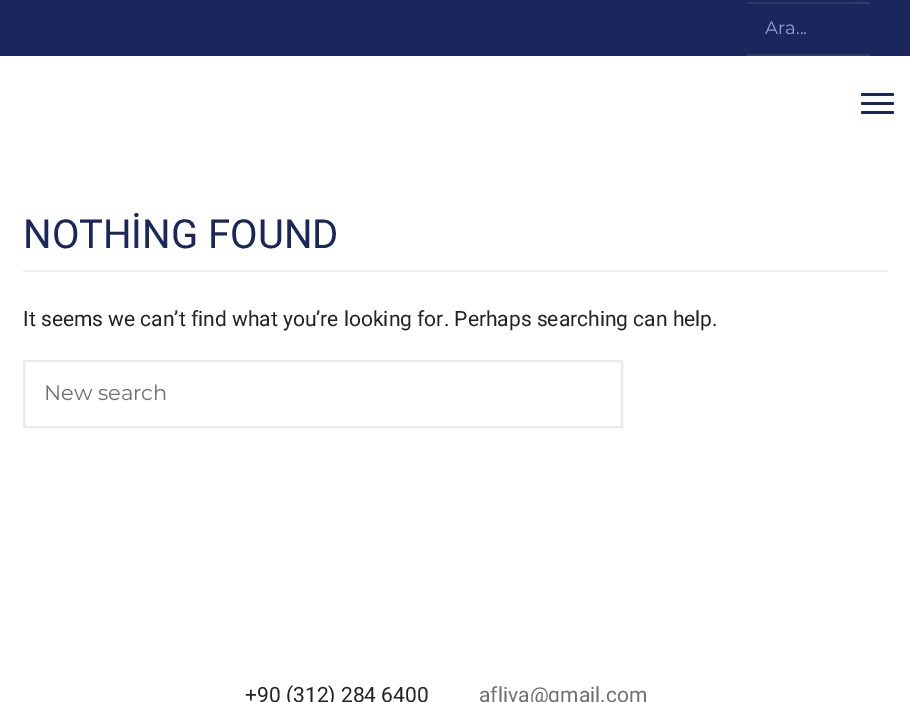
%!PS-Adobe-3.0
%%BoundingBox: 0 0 910 702
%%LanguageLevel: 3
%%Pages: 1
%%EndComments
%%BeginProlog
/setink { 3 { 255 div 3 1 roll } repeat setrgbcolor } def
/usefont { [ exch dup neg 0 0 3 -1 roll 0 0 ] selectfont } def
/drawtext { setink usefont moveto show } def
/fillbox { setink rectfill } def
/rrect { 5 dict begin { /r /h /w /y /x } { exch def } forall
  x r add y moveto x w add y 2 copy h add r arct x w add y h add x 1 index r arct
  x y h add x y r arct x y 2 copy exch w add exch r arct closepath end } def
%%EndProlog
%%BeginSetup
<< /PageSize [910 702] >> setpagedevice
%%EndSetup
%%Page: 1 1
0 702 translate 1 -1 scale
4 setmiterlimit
0 0 910 702 255 255 255 fillbox
0 0 910 56 26 38 92 fillbox
747 54 123 2 49 60 108 fillbox
852 2 18 2 49 60 108 fillbox
747 2 105 2 45 56 100 fillbox
(Ara...) 765 34 /Montserrat-Regular 18 146 158 212 drawtext
26 38 92 setink
861 93 33 3 1.5 rrect fill
861 102 33 3 1.5 rrect fill
861 111 33 3 1.5 rrect fill
23 270 865 2 238 238 238 fillbox
(NOTHİNG FOUND) 23 248 /Roboto-Regular 40 26 38 92 drawtext
(It seems we can’t find what you’re looking for. Perhaps searching can help.) 23 326 /Roboto-Regular 21 34 34 34 drawtext
231 235 238 setink
2 setlinewidth
24 361 598 66 rectstroke
(New search) 44 400 /Montserrat-Regular 21 112 112 112 drawtext
(+90 \(312\) 284 6400) 245 702 /Roboto-Regular 21 34 34 34 drawtext
(afliva@gmail.com) 479 702 /Roboto-Regular 21 112 112 112 drawtext
showpage
%%EOF
